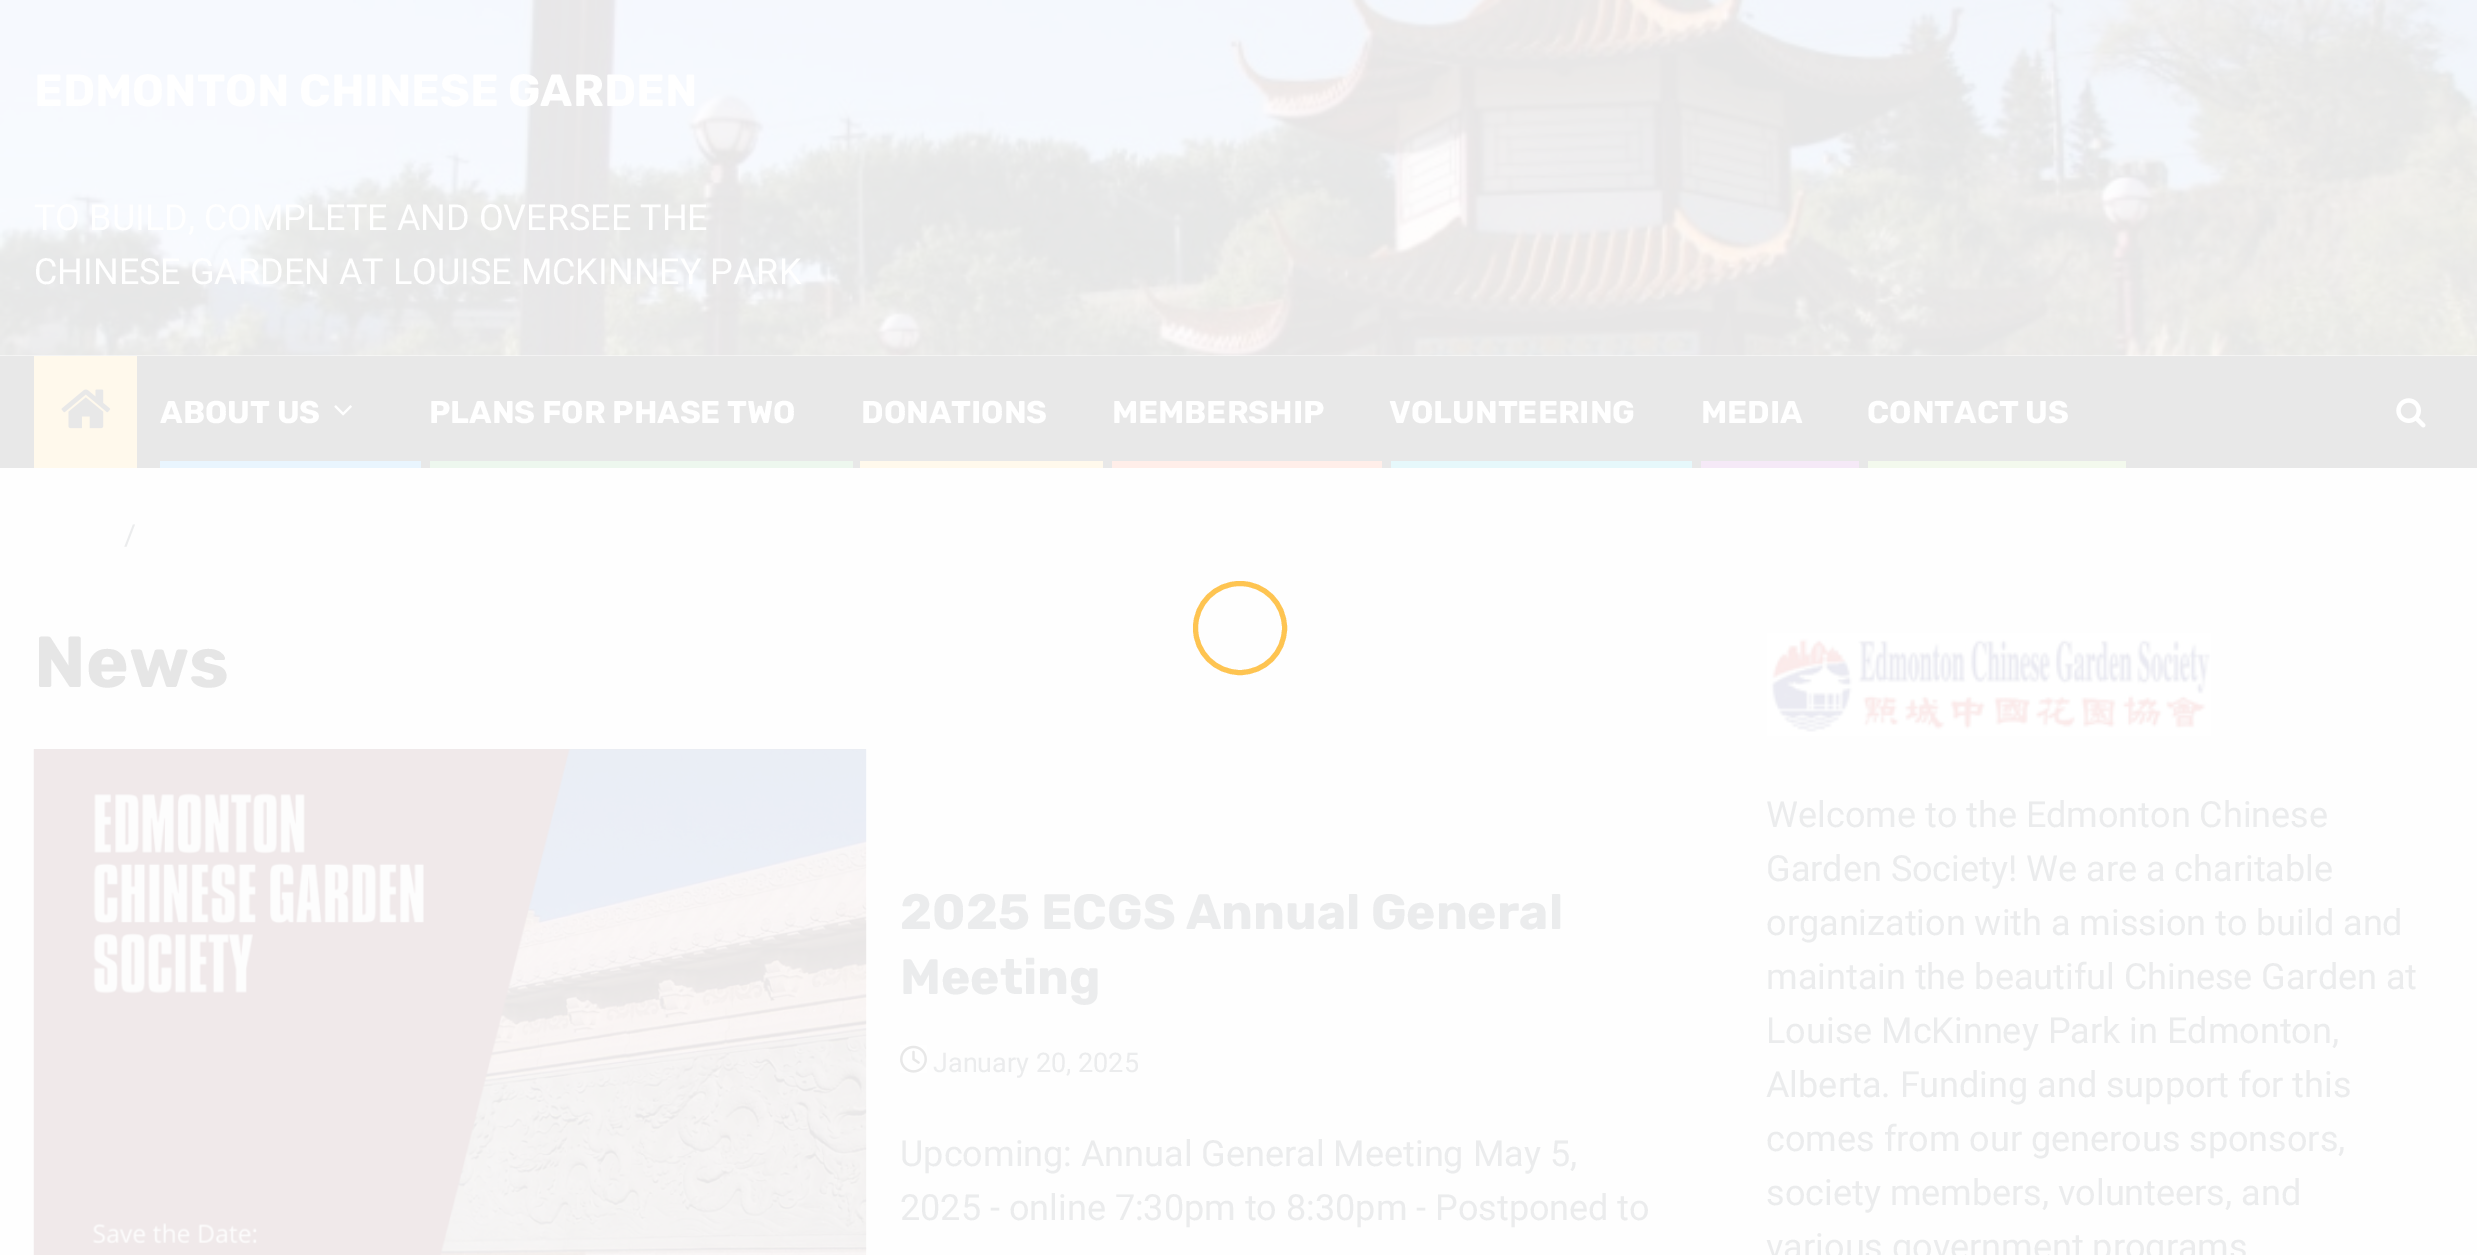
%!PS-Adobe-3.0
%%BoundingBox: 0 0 2477 1255
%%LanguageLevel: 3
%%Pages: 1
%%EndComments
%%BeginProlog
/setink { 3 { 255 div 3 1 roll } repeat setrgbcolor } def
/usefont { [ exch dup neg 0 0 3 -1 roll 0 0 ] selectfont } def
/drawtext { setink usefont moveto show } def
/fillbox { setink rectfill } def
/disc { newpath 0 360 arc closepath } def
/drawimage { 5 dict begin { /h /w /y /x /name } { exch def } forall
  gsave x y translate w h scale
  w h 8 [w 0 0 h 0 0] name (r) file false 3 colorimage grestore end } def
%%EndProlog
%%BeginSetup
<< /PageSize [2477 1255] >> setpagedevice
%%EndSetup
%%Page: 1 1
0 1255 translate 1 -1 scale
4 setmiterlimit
0 0 2477 1255 254 254 254 fillbox
(assets/img1.rgb) 0 0 2477 356 drawimage
(EDMONTON CHINESE GARDEN) 34 106 /Rubik-Bold 45 255 255 255 drawtext
(TO BUILD, COMPLETE AND OVERSEE THE) 34 230 /Roboto-Regular 36 255 255 255 drawtext
(CHINESE GARDEN AT LOUISE MCKINNEY PARK) 34 284 /Roboto-Regular 36 255 255 255 drawtext
0 356 2477 112 232 232 232 fillbox
34 356 103 112 255 249 236 fillbox
(assets/img2.rgb) 61 389 50 40 drawimage
(ABOUT US) 160 423 /Rubik-Bold 31.5 255 255 255 drawtext
(assets/img3.rgb) 334 405 18 11 drawimage
160 461 261 7 233 245 254 fillbox
(PLANS FOR PHASE TWO) 429 423 /Rubik-Bold 31.5 255 255 255 drawtext
430 461 423 7 237 247 238 fillbox
(DONATIONS) 861 423 /Rubik-Bold 31.5 255 255 255 drawtext
860 461 243 7 255 249 236 fillbox
(MEMBERSHIP) 1112 423 /Rubik-Bold 31.5 255 255 255 drawtext
1112 461 270 7 255 238 233 fillbox
(VOLUNTEERING) 1389 423 /Rubik-Bold 31.5 255 255 255 drawtext
1391 461 301 7 230 248 251 fillbox
(MEDIA) 1701 423 /Rubik-Bold 31.5 255 255 255 drawtext
1701 461 158 7 245 233 247 fillbox
(CONTACT US) 1867 423 /Rubik-Bold 31.5 255 255 255 drawtext
1868 461 258 7 243 249 237 fillbox
(assets/img4.rgb) 2396 398 30 30 drawimage
(/) 124 545 /Roboto-Regular 29 235 236 237 drawtext
(News) 34 687 /Rubik-Bold 72 230 230 230 drawtext
(assets/img5.rgb) 33 749 834 506 drawimage
(2025 ECGS Annual General) 900 929 /Rubik-Bold 49.5 235 236 237 drawtext
(Meeting) 900 994 /Rubik-Bold 49.5 235 236 237 drawtext
(assets/img6.rgb) 900 1045 27 28 drawimage
(January 20, 2025) 933 1072 /Roboto-Regular 27 235 236 237 drawtext
(Upcoming: Annual General Meeting May 5,) 900 1166 /Roboto-Regular 36 235 236 237 drawtext
(2025 - online 7:30pm to 8:30pm - Postponed to) 900 1220 /Roboto-Regular 36 235 236 237 drawtext
(assets/img7.rgb) 1767 633 444 103 drawimage
(Welcome to the Edmonton Chinese) 1766 827 /Roboto-Regular 36 235 236 237 drawtext
(Garden Society! We are a charitable) 1766 881 /Roboto-Regular 36 235 236 237 drawtext
(organization with a mission to build and) 1766 935 /Roboto-Regular 36 235 236 237 drawtext
(maintain the beautiful Chinese Garden at) 1766 989 /Roboto-Regular 36 235 236 237 drawtext
(Louise McKinney Park in Edmonton,) 1766 1043 /Roboto-Regular 36 235 236 237 drawtext
(Alberta. Funding and support for this) 1766 1097 /Roboto-Regular 36 235 236 237 drawtext
(comes from our generous sponsors,) 1766 1151 /Roboto-Regular 36 235 236 237 drawtext
(society members, volunteers, and) 1766 1205 /Roboto-Regular 36 235 236 237 drawtext
(various government programs) 1766 1259 /Roboto-Regular 36 235 236 237 drawtext
254 196 81 setink
5 setlinewidth
1240 628 44.5 disc stroke
showpage
%%EOF
